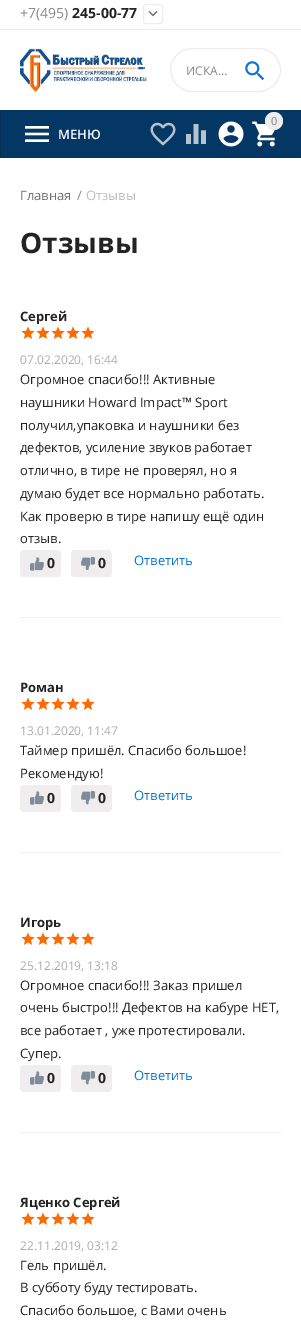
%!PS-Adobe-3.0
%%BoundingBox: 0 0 301 1329
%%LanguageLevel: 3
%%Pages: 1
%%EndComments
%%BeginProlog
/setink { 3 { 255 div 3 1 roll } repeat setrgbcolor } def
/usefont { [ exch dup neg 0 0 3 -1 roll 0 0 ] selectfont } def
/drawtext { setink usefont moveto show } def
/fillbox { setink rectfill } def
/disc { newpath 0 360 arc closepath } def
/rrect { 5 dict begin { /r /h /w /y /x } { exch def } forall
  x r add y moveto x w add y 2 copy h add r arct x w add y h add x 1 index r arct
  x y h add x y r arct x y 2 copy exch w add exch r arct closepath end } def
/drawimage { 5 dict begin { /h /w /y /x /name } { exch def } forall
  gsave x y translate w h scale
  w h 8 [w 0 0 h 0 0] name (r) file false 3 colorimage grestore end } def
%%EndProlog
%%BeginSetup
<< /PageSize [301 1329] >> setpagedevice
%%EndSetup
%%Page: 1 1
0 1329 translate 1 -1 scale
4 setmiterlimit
0 0 301 1329 255 255 255 fillbox
(+7\(495\)) 20 18 /OpenSans-Regular 14 137 137 137 drawtext
(245-00-77) 72 18 /OpenSans-Bold 14 35 35 35 drawtext
237 237 237 setink
143.5 4.5 19 19 2.5 rrect stroke
(assets/img1.rgb) 148 11 10 6 drawimage
(assets/img2.rgb) 20 48 127 44 drawimage
170.5 48.5 110 43 21.5 rrect stroke
(ИСКА…) 186 75 /OpenSans-Regular 12 137 137 137 drawtext
(assets/img3.rgb) 245 61 20 20 drawimage
1 110 300 48 4 55 100 fillbox
(assets/img4.rgb) 150 122 26 24 drawimage
(assets/img5.rgb) 186 124 20 20 drawimage
(assets/img6.rgb) 218 121 26 26 drawimage
(assets/img7.rgb) 252 121 24 26 drawimage
237 237 237 setink
274 121 9 disc fill
(0) 271 125 /OpenSans-Regular 11 128 128 128 drawtext
0 29 301 1 237 237 237 fillbox
0 110 1 48 3 47 85 fillbox
(assets/img8.rgb) 25 126 24 16 drawimage
(МЕНЮ) 58 139 /OpenSans-SemiBold 13 255 255 255 drawtext
(Главная) 20 200 /OpenSans-Regular 13 112 112 112 drawtext
(/) 77 200 /OpenSans-Regular 13 137 137 137 drawtext
(Отзывы) 86 200 /OpenSans-Regular 13 188 188 188 drawtext
(Отзывы) 20 253 /OpenSans-Bold 28 35 35 35 drawtext
20 617 261 1 239 239 239 fillbox
(Сергей) 20 321 /OpenSans-Bold 13 35 35 35 drawtext
(assets/img9.rgb) 21 326 14 13 drawimage
(assets/img9.rgb) 36 326 14 13 drawimage
(assets/img9.rgb) 51 326 14 13 drawimage
(assets/img9.rgb) 66 326 14 13 drawimage
(assets/img9.rgb) 81 326 14 13 drawimage
(07.02.2020, 16:44) 20 364 /OpenSans-Regular 12 173 173 173 drawtext
(Огромное спасибо!!! Активные) 20 384 /OpenSans-Regular 13 35 35 35 drawtext
(наушники Howard Impact™ Sport) 20 407 /OpenSans-Regular 13 35 35 35 drawtext
(получил,упаковка и наушники без) 20 430 /OpenSans-Regular 13 35 35 35 drawtext
(дефектов, усиление звуков работает) 20 452 /OpenSans-Regular 13 35 35 35 drawtext
(отлично, в тире не проверял, но я) 20 475 /OpenSans-Regular 13 35 35 35 drawtext
(думаю будет все нормально работать.) 20 498 /OpenSans-Regular 13 35 35 35 drawtext
(Как проверю в тире напишу ещё один) 20 521 /OpenSans-Regular 13 35 35 35 drawtext
(отзыв.) 20 543 /OpenSans-Regular 13 35 35 35 drawtext
239 237 237 setink
20 550 41 27 4 rrect fill
(assets/img10.rgb) 30 557 14 14 drawimage
(0) 47 568 /OpenSans-Bold 14 35 35 35 drawtext
239 237 237 setink
71 550 41 27 4 rrect fill
(assets/img11.rgb) 81 557 14 13 drawimage
(0) 98 568 /OpenSans-Bold 14 35 35 35 drawtext
(Ответить) 134 565 /OpenSans-Regular 13 2 117 216 drawtext
20 852 261 1 239 239 239 fillbox
(Роман) 20 692 /OpenSans-Bold 13 35 35 35 drawtext
(assets/img9.rgb) 21 697 14 13 drawimage
(assets/img9.rgb) 36 697 14 13 drawimage
(assets/img9.rgb) 51 697 14 13 drawimage
(assets/img9.rgb) 66 697 14 13 drawimage
(assets/img9.rgb) 81 697 14 13 drawimage
(13.01.2020, 11:47) 20 735 /OpenSans-Regular 12 173 173 173 drawtext
(Таймер пришёл. Спасибо большое!) 20 755 /OpenSans-Regular 13 35 35 35 drawtext
(Рекомендую!) 20 778 /OpenSans-Regular 13 35 35 35 drawtext
239 237 237 setink
20 785 41 27 4 rrect fill
(assets/img10.rgb) 30 791 14 14 drawimage
(0) 47 803 /OpenSans-Bold 14 35 35 35 drawtext
239 237 237 setink
71 785 41 27 4 rrect fill
(assets/img12.rgb) 81 791 14 14 drawimage
(0) 98 803 /OpenSans-Bold 14 35 35 35 drawtext
(Ответить) 134 800 /OpenSans-Regular 13 2 117 216 drawtext
20 1132 261 1 239 239 239 fillbox
(Игорь) 20 927 /OpenSans-Bold 13 35 35 35 drawtext
(assets/img9.rgb) 21 932 14 13 drawimage
(assets/img9.rgb) 36 932 14 13 drawimage
(assets/img9.rgb) 51 932 14 13 drawimage
(assets/img9.rgb) 66 932 14 13 drawimage
(assets/img9.rgb) 81 932 14 13 drawimage
(25.12.2019, 13:18) 20 970 /OpenSans-Regular 12 173 173 173 drawtext
(Огромное спасибо!!! Заказ пришел) 20 990 /OpenSans-Regular 13 35 35 35 drawtext
(очень быстро!!! Дефектов на кабуре НЕТ,) 20 1012 /OpenSans-Regular 13 35 35 35 drawtext
(все работает , уже протестировали.) 20 1035 /OpenSans-Regular 13 35 35 35 drawtext
(Супер.) 20 1058 /OpenSans-Regular 13 35 35 35 drawtext
239 237 237 setink
20 1065 41 27 4 rrect fill
(assets/img10.rgb) 30 1071 14 14 drawimage
(0) 47 1083 /OpenSans-Bold 14 35 35 35 drawtext
239 237 237 setink
71 1065 41 27 4 rrect fill
(assets/img12.rgb) 81 1071 14 14 drawimage
(0) 98 1083 /OpenSans-Bold 14 35 35 35 drawtext
(Ответить) 134 1080 /OpenSans-Regular 13 2 117 216 drawtext
(Яценко Сергей) 20 1207 /OpenSans-Bold 13 35 35 35 drawtext
(assets/img9.rgb) 21 1212 14 13 drawimage
(assets/img9.rgb) 36 1212 14 13 drawimage
(assets/img9.rgb) 51 1212 14 13 drawimage
(assets/img9.rgb) 66 1212 14 13 drawimage
(assets/img9.rgb) 81 1212 14 13 drawimage
(22.11.2019, 03:12) 20 1250 /OpenSans-Regular 12 173 173 173 drawtext
(Гель пришёл.) 20 1270 /OpenSans-Regular 13 35 35 35 drawtext
(В субботу буду тестировать.) 20 1292 /OpenSans-Regular 13 35 35 35 drawtext
(Спасибо большое, с Вами очень) 20 1315 /OpenSans-Regular 13 35 35 35 drawtext
showpage
%%EOF
